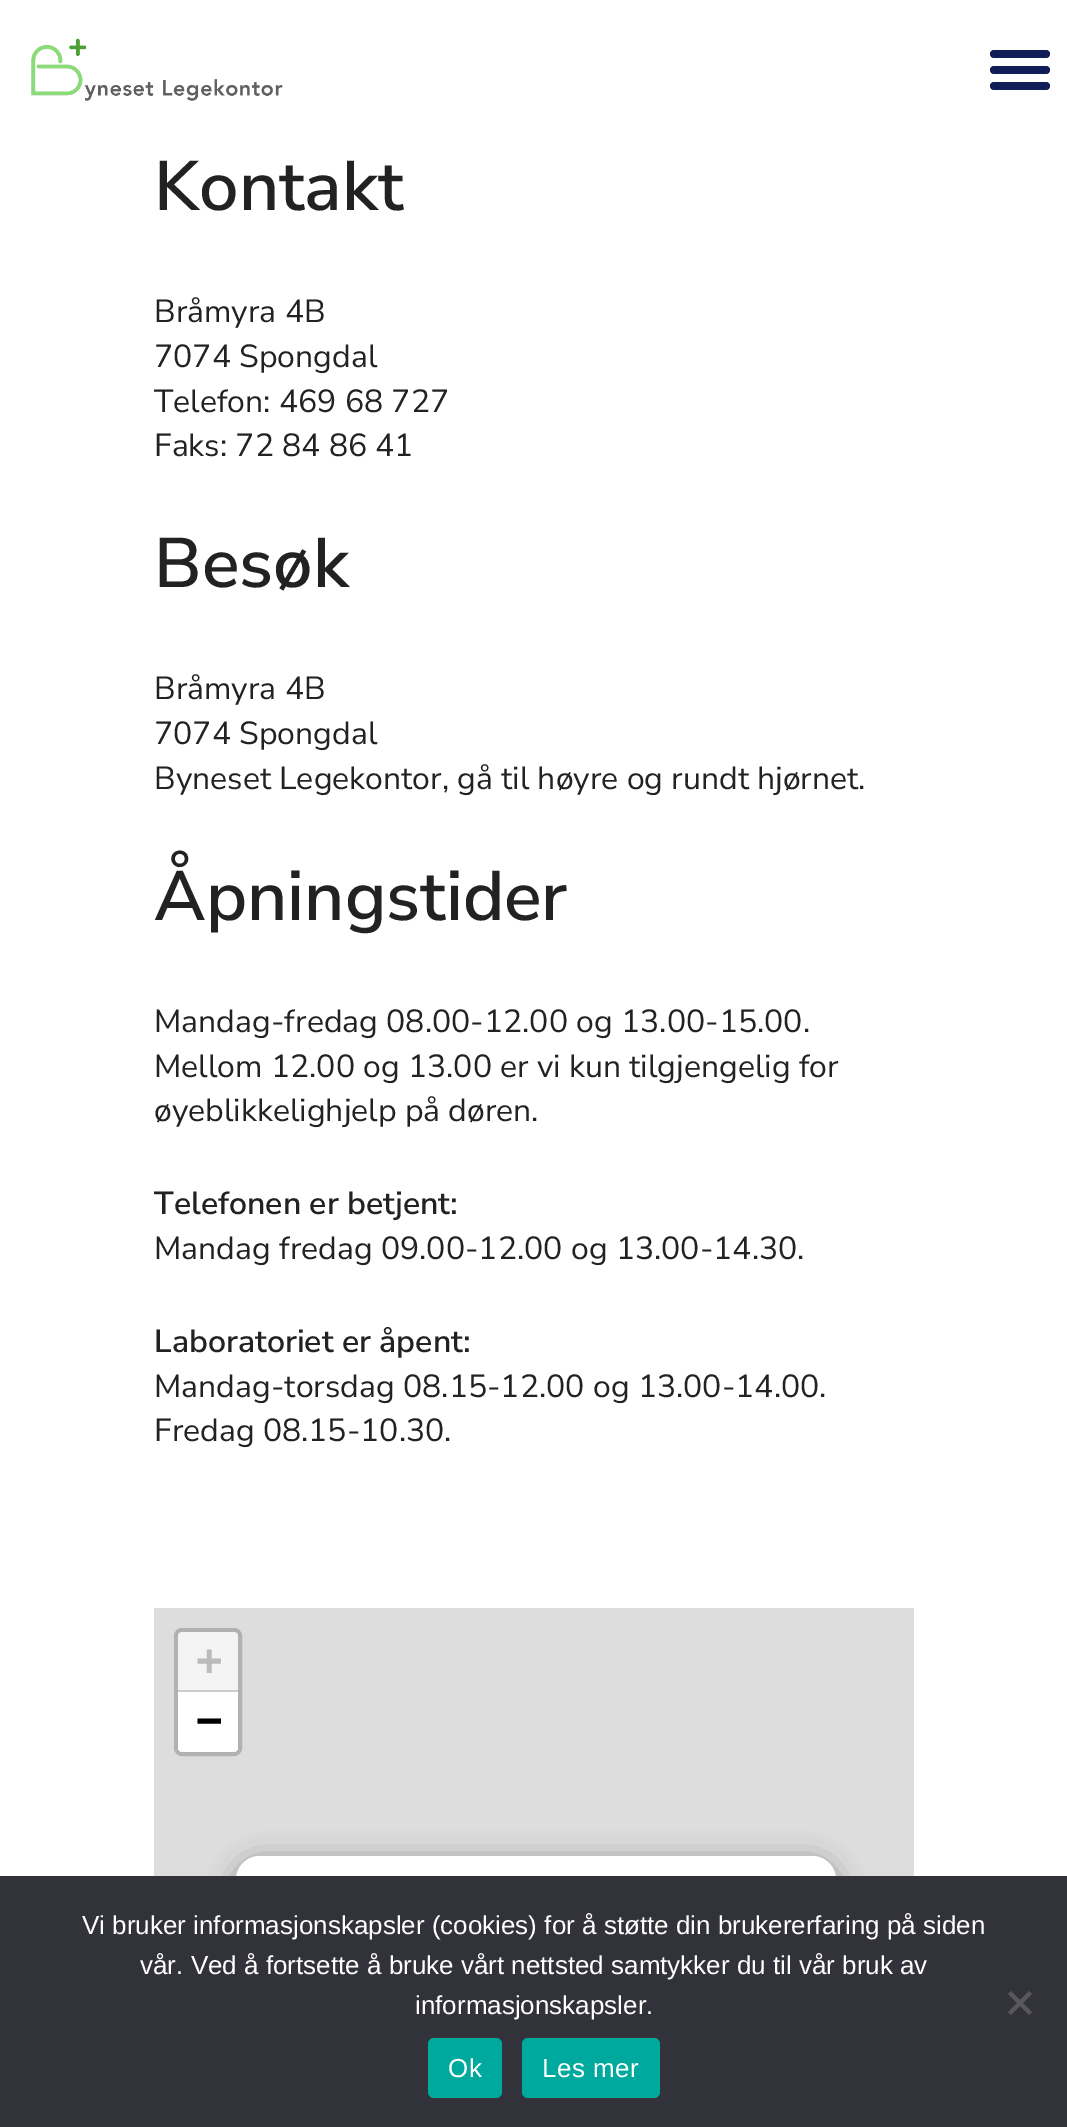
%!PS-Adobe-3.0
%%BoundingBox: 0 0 1067 2127
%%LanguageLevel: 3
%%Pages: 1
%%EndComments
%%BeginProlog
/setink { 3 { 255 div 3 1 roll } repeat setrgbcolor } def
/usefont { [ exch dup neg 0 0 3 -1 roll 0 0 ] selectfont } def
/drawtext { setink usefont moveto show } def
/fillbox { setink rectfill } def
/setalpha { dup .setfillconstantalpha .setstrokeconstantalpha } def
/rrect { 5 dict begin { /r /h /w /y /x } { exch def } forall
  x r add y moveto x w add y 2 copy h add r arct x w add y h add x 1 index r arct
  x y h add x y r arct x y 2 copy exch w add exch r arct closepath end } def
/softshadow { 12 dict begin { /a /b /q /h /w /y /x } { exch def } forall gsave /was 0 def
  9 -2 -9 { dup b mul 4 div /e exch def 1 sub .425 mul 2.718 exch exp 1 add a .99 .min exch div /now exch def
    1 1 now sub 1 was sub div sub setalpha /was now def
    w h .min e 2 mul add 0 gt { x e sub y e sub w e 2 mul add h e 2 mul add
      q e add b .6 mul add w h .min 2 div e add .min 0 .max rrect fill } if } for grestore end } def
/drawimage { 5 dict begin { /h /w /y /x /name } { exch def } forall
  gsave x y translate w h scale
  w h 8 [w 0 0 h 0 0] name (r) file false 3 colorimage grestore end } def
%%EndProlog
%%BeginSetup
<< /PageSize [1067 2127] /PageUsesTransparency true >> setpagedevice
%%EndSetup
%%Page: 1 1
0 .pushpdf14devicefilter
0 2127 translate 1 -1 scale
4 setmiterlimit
0 0 1067 2127 255 255 255 fillbox
(assets/img1.rgb) 31 38 252 63 drawimage
18 29 88 setink
990 66 60 8 4 rrect fill
990 50 60 8 4 rrect fill
990 82 60 8 4 rrect fill
(Kontakt) 154 210 /NunitoSans-SemiBold 70 34 34 34 drawtext
(Bråmyra 4B) 154 322 /NunitoSans-Regular 32 34 34 34 drawtext
(7074 Spongdal) 154 367 /NunitoSans-Regular 32 34 34 34 drawtext
(Telefon: 469 68 727) 154 412 /NunitoSans-Regular 32 34 34 34 drawtext
(Faks: 72 84 86 41) 154 456 /NunitoSans-Regular 32 34 34 34 drawtext
(Besøk) 154 587 /NunitoSans-SemiBold 70 34 34 34 drawtext
(Bråmyra 4B) 154 699 /NunitoSans-Regular 32 34 34 34 drawtext
(7074 Spongdal) 154 744 /NunitoSans-Regular 32 34 34 34 drawtext
(Byneset Legekontor, gå til høyre og rundt hjørnet.) 154 789 /NunitoSans-Regular 32 34 34 34 drawtext
(Åpningstider) 154 920 /NunitoSans-SemiBold 70 34 34 34 drawtext
(Mandag-fredag 08.00-12.00 og 13.00-15.00.) 154 1032 /NunitoSans-Regular 32 34 34 34 drawtext
(Mellom 12.00 og 13.00 er vi kun tilgjengelig for) 154 1077 /NunitoSans-Regular 32 34 34 34 drawtext
(øyeblikkelighjelp på døren.) 154 1121 /NunitoSans-Regular 32 34 34 34 drawtext
(Telefonen er betjent:) 154 1214 /NunitoSans-SemiBold 32 34 34 34 drawtext
(Mandag fredag 09.00-12.00 og 13.00-14.30.) 154 1259 /NunitoSans-Regular 32 34 34 34 drawtext
(Laboratoriet er åpent:) 154 1352 /NunitoSans-SemiBold 32 34 34 34 drawtext
(Mandag-torsdag 08.15-12.00 og 13.00-14.00.) 154 1397 /NunitoSans-Regular 32 34 34 34 drawtext
(Fredag 08.15-10.30.) 154 1441 /NunitoSans-Regular 32 34 34 34 drawtext
154 1608 760 268 221 221 221 fillbox
177 177 177 setink
4 setlinewidth
176 1630 64 124 6 rrect stroke
244 244 244 setink
182 1632 moveto 234 1632 lineto 236 1632 238 1634 238 1636 curveto 238 1692 lineto 178 1692 lineto 178 1636 lineto 178 1634 180 1632 182 1632 curveto closepath fill
178 1690 60 2 204 204 204 fillbox
(+) 196 1675 /DejaVuSansMono-Bold 44 187 187 187 drawtext
255 255 255 setink
178 1692 moveto 238 1692 lineto 238 1748 lineto 238 1750 236 1752 234 1752 curveto 182 1752 lineto 180 1752 178 1750 178 1748 curveto closepath fill
(−) 196 1735 /DejaVuSansMono-Bold 44 0 0 0 drawtext
236 1862 600 158 24 14 0.4 softshadow
255 255 255 setink
236 1856 600 158 24 rrect fill
0 1876 1067 251 50 50 58 fillbox
(Vi bruker informasjonskapsler \(cookies\) for å støtte din brukererfaring på siden) 82 1934 /LiberationSans-Regular 26 255 255 255 drawtext
(vår. Ved å fortsette å bruke vårt nettsted samtykker du til vår bruk av) 140 1974 /LiberationSans-Regular 26 255 255 255 drawtext
(informasjonskapsler.) 415 2014 /LiberationSans-Regular 26 255 255 255 drawtext
89 89 93 setink
1029 1991 moveto 1032 1994 lineto 1011 2015 lineto 1008 2012 lineto closepath fill
1008 1994 moveto 1011 1991 lineto 1032 2012 lineto 1029 2015 lineto closepath fill
0 169 157 setink
428 2038 74 60 6 rrect fill
255 255 255 setink
448 2077 moveto 0.5 0 (Ok) ashow
0 169 157 setink
522 2038 138 60 6 rrect fill
255 255 255 setink
542 2077 moveto 0.5 0 (Les mer) ashow
.poppdf14devicefilter showpage
%%EOF
